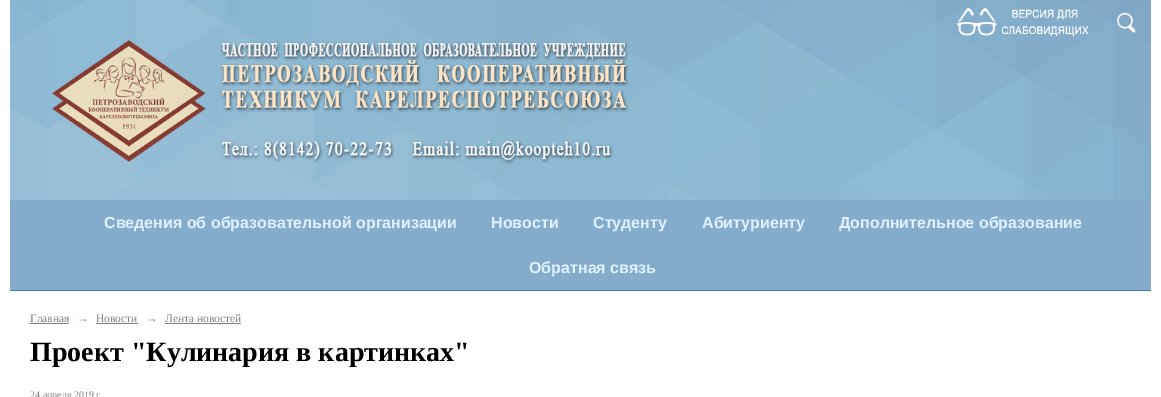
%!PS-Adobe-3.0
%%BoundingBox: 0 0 1161 397
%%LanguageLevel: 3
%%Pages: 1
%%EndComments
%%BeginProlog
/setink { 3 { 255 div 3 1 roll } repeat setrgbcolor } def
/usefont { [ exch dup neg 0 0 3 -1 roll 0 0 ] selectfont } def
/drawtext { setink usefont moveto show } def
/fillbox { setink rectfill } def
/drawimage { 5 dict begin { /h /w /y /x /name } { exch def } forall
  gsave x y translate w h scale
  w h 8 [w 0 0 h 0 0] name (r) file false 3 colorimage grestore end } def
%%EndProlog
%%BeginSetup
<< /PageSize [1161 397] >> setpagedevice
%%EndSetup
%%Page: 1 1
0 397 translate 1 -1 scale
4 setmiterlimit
0 0 1161 397 255 255 255 fillbox
(assets/img1.rgb) 10 0 1141 200 drawimage
(assets/img2.rgb) 956 8 133 29 drawimage
(assets/img3.rgb) 1116 12 20 21 drawimage
(assets/img4.rgb) 52 40 577 124 drawimage
10 200 1141 90 132 173 205 fillbox
10 290 1141 1 68 124 167 fillbox
(Сведения об образовательной организации) 104 228 /LiberationSans-Bold 16 224 242 255 drawtext
(Новости) 491 228 /LiberationSans-Bold 16 224 242 255 drawtext
(Студенту) 593 228 /LiberationSans-Bold 16 224 242 255 drawtext
(Абитуриенту) 702 228 /LiberationSans-Bold 16 224 242 255 drawtext
(Дополнительное образование) 839 228 /LiberationSans-Bold 16 224 242 255 drawtext
(Обратная связь) 529 273 /LiberationSans-Bold 16 224 242 255 drawtext
(Главная) 30 322 /LiberationSerif-Regular 11.5 128 128 128 drawtext
30 323 39 1 128 128 128 fillbox
(→) 77 322 /LiberationSerif-Italic 11.5 128 128 128 drawtext
(Новости) 96 322 /LiberationSerif-Regular 11.5 128 128 128 drawtext
96 323 42 1 128 128 128 fillbox
(→) 146 322 /LiberationSerif-Italic 11.5 128 128 128 drawtext
(Лента новостей) 165 322 /LiberationSerif-Regular 11.5 128 128 128 drawtext
165 323 76 1 128 128 128 fillbox
(Проект "Кулинария в картинках") 30 361 /LiberationSerif-Bold 28 0 0 0 drawtext
(24 апреля 2019 г.) 30 398 /LiberationSerif-Regular 10 128 128 128 drawtext
showpage
%%EOF
